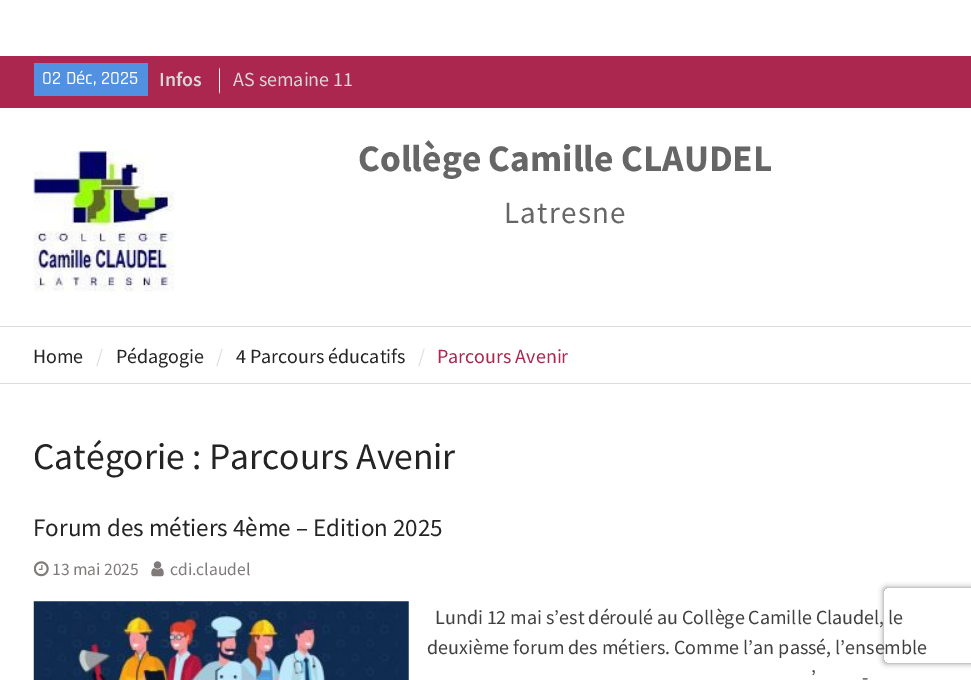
%!PS-Adobe-3.0
%%BoundingBox: 0 0 971 680
%%LanguageLevel: 3
%%Pages: 1
%%EndComments
%%BeginProlog
/setink { 3 { 255 div 3 1 roll } repeat setrgbcolor } def
/usefont { [ exch dup neg 0 0 3 -1 roll 0 0 ] selectfont } def
/drawtext { setink usefont moveto show } def
/fillbox { setink rectfill } def
/setalpha { dup .setfillconstantalpha .setstrokeconstantalpha } def
/rrect { 5 dict begin { /r /h /w /y /x } { exch def } forall
  x r add y moveto x w add y 2 copy h add r arct x w add y h add x 1 index r arct
  x y h add x y r arct x y 2 copy exch w add exch r arct closepath end } def
/softshadow { 12 dict begin { /a /b /q /h /w /y /x } { exch def } forall gsave /was 0 def
  9 -2 -9 { dup b mul 4 div /e exch def 1 sub .425 mul 2.718 exch exp 1 add a .99 .min exch div /now exch def
    1 1 now sub 1 was sub div sub setalpha /was now def
    w h .min e 2 mul add 0 gt { x e sub y e sub w e 2 mul add h e 2 mul add
      q e add b .6 mul add w h .min 2 div e add .min 0 .max rrect fill } if } for grestore end } def
/drawimage { 5 dict begin { /h /w /y /x /name } { exch def } forall
  gsave x y translate w h scale
  w h 8 [w 0 0 h 0 0] name (r) file false 3 colorimage grestore end } def
%%EndProlog
%%BeginSetup
<< /PageSize [971 680] /PageUsesTransparency true >> setpagedevice
%%EndSetup
%%Page: 1 1
0 .pushpdf14devicefilter
0 680 translate 1 -1 scale
4 setmiterlimit
0 0 971 680 255 255 255 fillbox
0 56 971 52 171 39 79 fillbox
34 63 114 33 82 145 225 fillbox
(02 Déc, 2025) 42 84 /Rajdhani-Medium 18.75 255 255 255 drawtext
(Infos) 159 86 /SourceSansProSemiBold-SemiBold 20 215 215 215 drawtext
255 255 255 setink
219 94 moveto 219 67.5 lineto 220 70 lineto 220 91 lineto closepath fill
(AS semaine 11) 233 86 /SourceSansPro-Regular 20 215 215 215 drawtext
0 326 971 1 221 221 221 fillbox
(assets/img1.rgb) 33 151 142 142 drawimage
(Collège Camille CLAUDEL) 358 171 /SourceSansPro-Bold 37.5 102 102 102 drawtext
/SourceSansPro-Regular 31 usefont
504 223 moveto 1.25 0 (Latresne) ashow
0 383 971 1 221 221 221 fillbox
(Home) 33 363 /SourceSansPro-Regular 20 36 36 36 drawtext
(/) 96 363 /SourceSansPro-Regular 20 221 221 221 drawtext
(Pédagogie) 116 363 /SourceSansPro-Regular 20 36 36 36 drawtext
(/) 216 363 /SourceSansPro-Regular 20 221 221 221 drawtext
(4 Parcours éducatifs) 236 363 /SourceSansPro-Regular 20 36 36 36 drawtext
(/) 418 363 /SourceSansPro-Regular 20 221 221 221 drawtext
(Parcours Avenir) 437 363 /SourceSansPro-Regular 20 171 39 79 drawtext
(Catégorie : Parcours Avenir) 33 469 /SourceSansPro-Regular 37.5 36 36 36 drawtext
(Forum des métiers 4ème – Edition 2025) 33 536 /SourceSansPro-Regular 25 36 36 36 drawtext
(assets/img2.rgb) 34 561 15 16 drawimage
(13 mai 2025) 52 575 /SourceSansPro-Regular 17.5 128 122 122 drawtext
(assets/img3.rgb) 151 561 13 16 drawimage
(cdi.claudel) 170 575 /SourceSansPro-Regular 17.5 128 122 122 drawtext
(assets/img4.rgb) 33 601 376 79 drawimage
(Lundi 12 mai s’est déroulé au Collège Camille Claudel, le) 435 624 /SourceSansPro-Regular 20 64 64 64 drawtext
(deuxième forum des métiers. Comme l’an passé, l’ensemble) 427 654 /SourceSansPro-Regular 20 64 64 64 drawtext
(’) 811 684 /SourceSansPro-Regular 20 64 64 64 drawtext
(-) 862 684 /SourceSansPro-Regular 20 64 64 64 drawtext
gsave
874 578 moveto 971 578 lineto 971 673 lineto 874 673 lineto closepath 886.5 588 moveto 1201.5 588 lineto 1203 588 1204 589 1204 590.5 curveto 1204 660.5 lineto 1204 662 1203 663 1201.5 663 curveto 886.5 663 lineto 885 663 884 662 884 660.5 curveto 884 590.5 lineto 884 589 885 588 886.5 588 curveto closepath eoclip newpath
128 128 128 setink
884 588 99 75 2.5 3 1 softshadow
grestore
.poppdf14devicefilter showpage
%%EOF
